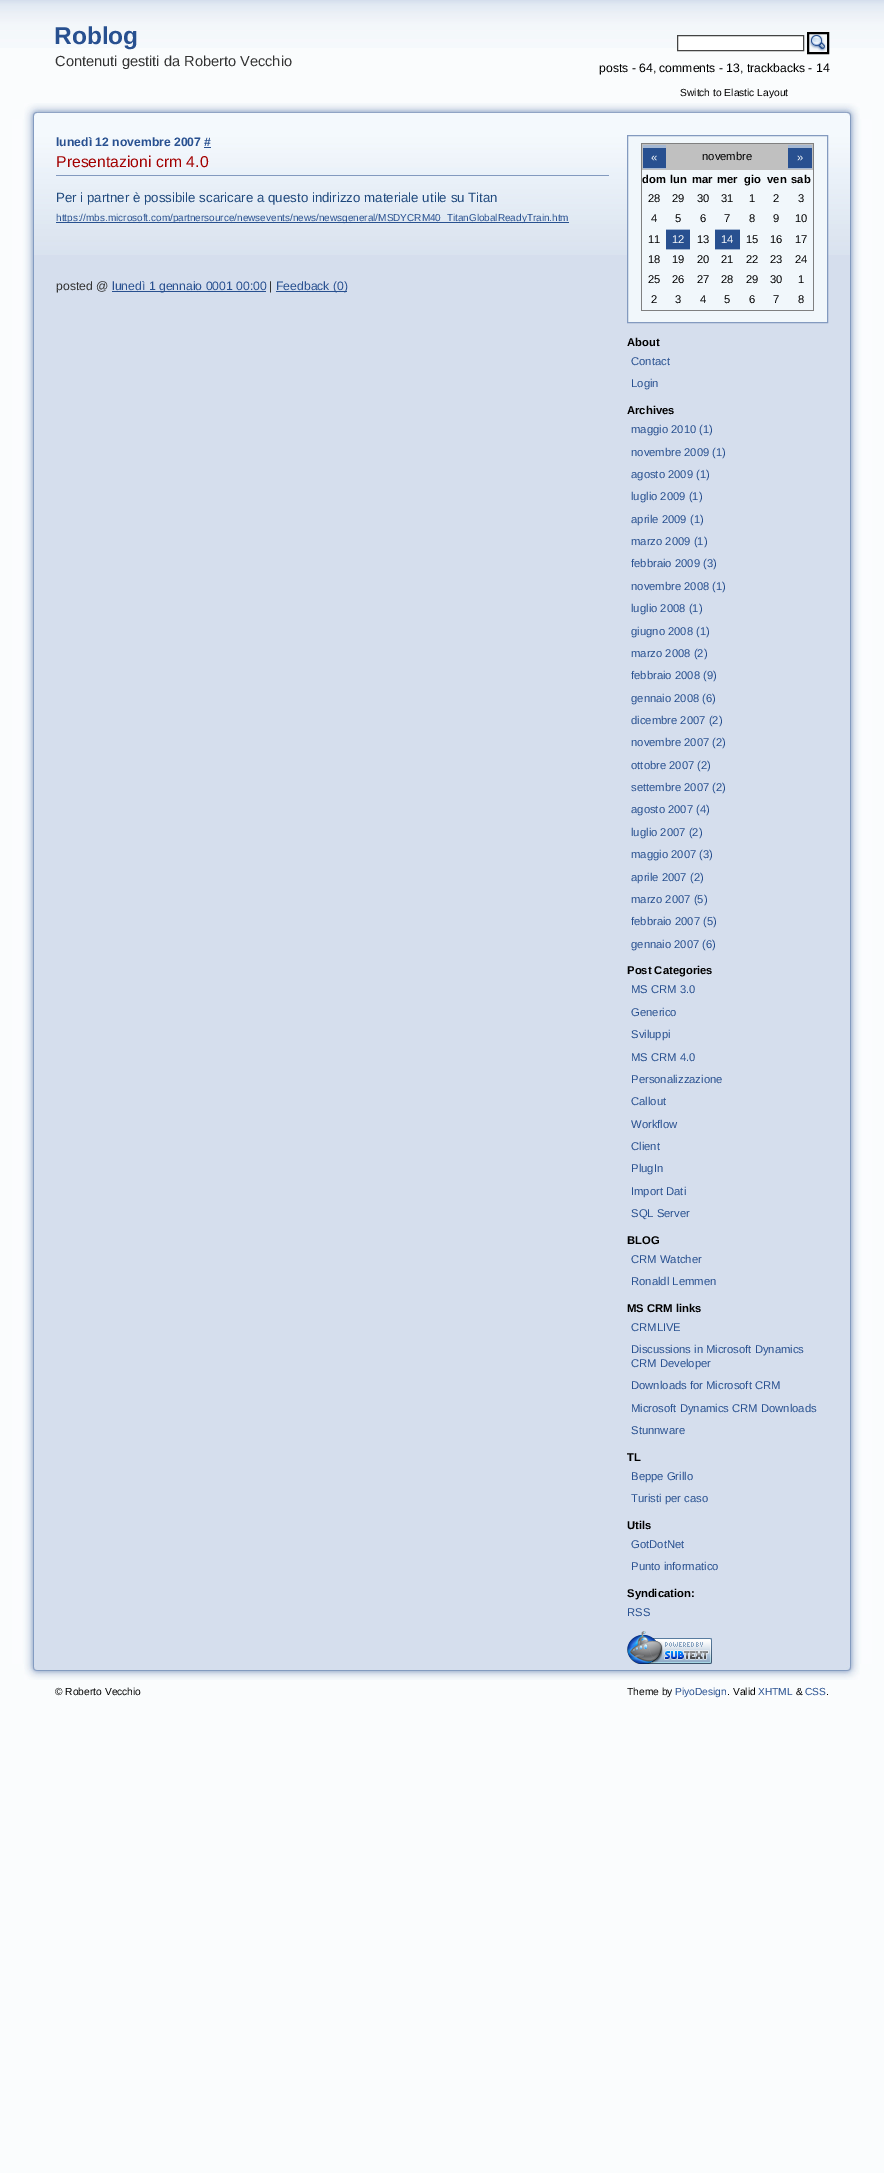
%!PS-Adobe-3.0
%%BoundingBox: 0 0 884 2173
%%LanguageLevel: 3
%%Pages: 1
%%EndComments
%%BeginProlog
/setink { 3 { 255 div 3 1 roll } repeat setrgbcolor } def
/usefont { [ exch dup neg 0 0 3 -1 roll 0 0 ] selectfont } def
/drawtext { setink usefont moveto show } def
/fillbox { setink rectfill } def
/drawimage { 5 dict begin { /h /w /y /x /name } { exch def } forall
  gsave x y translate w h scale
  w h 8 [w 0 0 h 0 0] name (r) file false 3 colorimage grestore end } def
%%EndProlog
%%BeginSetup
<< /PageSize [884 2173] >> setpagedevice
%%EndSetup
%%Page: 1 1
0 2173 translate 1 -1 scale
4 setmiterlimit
0 0 884 2173 250 252 253 fillbox
(assets/img1.rgb) 0 0 884 48 drawimage
(Roblog) 54 44 /LiberationSans-Bold 24.5 40 80 144 drawtext
(Contenuti gestiti da Roberto Vecchio) 55 66 /LiberationSans-Regular 14.6 51 51 51 drawtext
255 255 255 setink
677.5 35.5 moveto 803.5 35.5 lineto 803.5 50.5 lineto 677.5 50.5 lineto closepath gsave fill grestore
68 68 68 setink
stroke
(assets/img2.rgb) 809 34 18 18 drawimage
0 0 0 setink
2 setlinewidth
808 33 20 20 rectstroke
(posts - 64, comments - 13, trackbacks - 14) 599 72 /LiberationSans-Regular 12.2 0 0 0 drawtext
(Switch to Elastic Layout) 680 96 /LiberationSans-Regular 10.25 0 0 0 drawtext
(assets/img3.rgb) 24 103 16 16 drawimage
(assets/img4.rgb) 844 103 16 16 drawimage
(assets/img5.rgb) 40 103 804 16 drawimage
34 255 816 1409 213 222 237 fillbox
(assets/img6.rgb) 12 119 22 1545 drawimage
(assets/img7.rgb) 850 119 22 1545 drawimage
(assets/img8.rgb) 34 119 816 136 drawimage
(lunedì 12 novembre 2007 #) 56 146 /LiberationSans-Bold 12.2 40 80 144 drawtext
204 147 7 1 40 80 144 fillbox
56 175 553 1 131 154 191 fillbox
(Presentazioni crm 4.0) 56 167 /LiberationSans-Regular 15.75 163 0 0 drawtext
(Per i partner è possibile scaricare a questo indirizzo materiale utile su Titan) 56 202 /LiberationSans-Regular 13.3 31 73 125 drawtext
56 222 513 1 40 80 144 fillbox
(https://mbs.microsoft.com/partnersource/newsevents/news/newsgeneral/MSDYCRM40_TitanGlobalReadyTrain.htm) 56 221 /LiberationSans-Regular 10 40 80 144 drawtext
(posted @) 56 290 /LiberationSans-Regular 12.2 51 51 51 drawtext
112 291 154 1 40 80 144 fillbox
(lunedì 1 gennaio 0001 00:00) 112 290 /LiberationSans-Regular 12.2 40 80 144 drawtext
(|) 269 290 /LiberationSans-Regular 12.2 51 51 51 drawtext
276 291 71 1 40 80 144 fillbox
(Feedback \(0\)) 276 290 /LiberationSans-Regular 12.2 40 80 144 drawtext
241 247 251 setink
627.5 135.5 moveto 827.5 135.5 lineto 827.5 322.5 lineto 627.5 322.5 lineto closepath gsave fill grestore
131 154 191 setink
1 setlinewidth
stroke
641 143 173 1 128 128 128 fillbox
813 143 1 168 128 128 128 fillbox
641 310 173 1 128 128 128 fillbox
641 143 1 168 128 128 128 fillbox
642 144 171 26 192 192 192 fillbox
643 145 23 3 165 184 211 fillbox
643 148 23 20 40 80 144 fillbox
643 168 23 1 165 184 211 fillbox
(«) 651 161 /LiberationSans-Regular 11.25 250 252 253 drawtext
(novembre) 702 160 /LiberationSans-Regular 11.25 0 0 0 drawtext
788 145 24 3 165 184 211 fillbox
788 148 24 20 40 80 144 fillbox
788 168 24 1 165 184 211 fillbox
(») 797 161 /LiberationSans-Regular 11.25 250 252 253 drawtext
(dom) 642 183 /LiberationSans-Bold 11.25 0 0 0 drawtext
(lun) 670 183 /LiberationSans-Bold 11.25 0 0 0 drawtext
(mar) 692 183 /LiberationSans-Bold 11.25 0 0 0 drawtext
(mer) 717 183 /LiberationSans-Bold 11.25 0 0 0 drawtext
(gio) 744 183 /LiberationSans-Bold 11.25 0 0 0 drawtext
(ven) 767 183 /LiberationSans-Bold 11.25 0 0 0 drawtext
(sab) 791 183 /LiberationSans-Bold 11.25 0 0 0 drawtext
(28) 648 202 /LiberationSans-Regular 11.25 0 0 0 drawtext
(29) 672 202 /LiberationSans-Regular 11.25 0 0 0 drawtext
(30) 697 202 /LiberationSans-Regular 11.25 0 0 0 drawtext
(31) 721 202 /LiberationSans-Regular 11.25 0 0 0 drawtext
(1) 749 202 /LiberationSans-Regular 11.25 0 0 0 drawtext
(2) 773 202 /LiberationSans-Regular 11.25 0 0 0 drawtext
(3) 798 202 /LiberationSans-Regular 11.25 0 0 0 drawtext
(4) 651 222 /LiberationSans-Regular 11.25 0 0 0 drawtext
(5) 675 222 /LiberationSans-Regular 11.25 0 0 0 drawtext
(6) 700 222 /LiberationSans-Regular 11.25 0 0 0 drawtext
(7) 724 222 /LiberationSans-Regular 11.25 0 0 0 drawtext
(8) 749 222 /LiberationSans-Regular 11.25 0 0 0 drawtext
(9) 773 222 /LiberationSans-Regular 11.25 0 0 0 drawtext
(10) 795 222 /LiberationSans-Regular 11.25 0 0 0 drawtext
(11) 648 243 /LiberationSans-Regular 11.25 0 0 0 drawtext
666 230 24 19 40 80 144 fillbox
666 229 24 1 165 184 211 fillbox
666 249 24 1 165 184 211 fillbox
(12) 672 243 /LiberationSans-Regular 11.25 250 252 253 drawtext
(13) 697 243 /LiberationSans-Regular 11.25 0 0 0 drawtext
715 230 25 19 40 80 144 fillbox
715 229 25 1 165 184 211 fillbox
715 249 25 1 165 184 211 fillbox
(14) 721 243 /LiberationSans-Regular 11.25 250 252 253 drawtext
(15) 746 243 /LiberationSans-Regular 11.25 0 0 0 drawtext
(16) 770 243 /LiberationSans-Regular 11.25 0 0 0 drawtext
(17) 795 243 /LiberationSans-Regular 11.25 0 0 0 drawtext
(18) 648 263 /LiberationSans-Regular 11.25 0 0 0 drawtext
(19) 672 263 /LiberationSans-Regular 11.25 0 0 0 drawtext
(20) 697 263 /LiberationSans-Regular 11.25 0 0 0 drawtext
(21) 721 263 /LiberationSans-Regular 11.25 0 0 0 drawtext
(22) 746 263 /LiberationSans-Regular 11.25 0 0 0 drawtext
(23) 770 263 /LiberationSans-Regular 11.25 0 0 0 drawtext
(24) 795 263 /LiberationSans-Regular 11.25 0 0 0 drawtext
(25) 648 283 /LiberationSans-Regular 11.25 0 0 0 drawtext
(26) 672 283 /LiberationSans-Regular 11.25 0 0 0 drawtext
(27) 697 283 /LiberationSans-Regular 11.25 0 0 0 drawtext
(28) 721 283 /LiberationSans-Regular 11.25 0 0 0 drawtext
(29) 746 283 /LiberationSans-Regular 11.25 0 0 0 drawtext
(30) 770 283 /LiberationSans-Regular 11.25 0 0 0 drawtext
(1) 798 283 /LiberationSans-Regular 11.25 0 0 0 drawtext
(2) 651 303 /LiberationSans-Regular 11.25 0 0 0 drawtext
(3) 675 303 /LiberationSans-Regular 11.25 0 0 0 drawtext
(4) 700 303 /LiberationSans-Regular 11.25 0 0 0 drawtext
(5) 724 303 /LiberationSans-Regular 11.25 0 0 0 drawtext
(6) 749 303 /LiberationSans-Regular 11.25 0 0 0 drawtext
(7) 773 303 /LiberationSans-Regular 11.25 0 0 0 drawtext
(8) 798 303 /LiberationSans-Regular 11.25 0 0 0 drawtext
(About) 627 346 /LiberationSans-Bold 11.25 0 0 0 drawtext
(Contact) 631 365 /LiberationSans-Regular 11.25 40 80 144 drawtext
(Login) 631 387 /LiberationSans-Regular 11.25 40 80 144 drawtext
(Archives) 627 414 /LiberationSans-Bold 11.25 0 0 0 drawtext
(maggio 2010 \(1\)) 631 433 /LiberationSans-Regular 11.25 40 80 144 drawtext
(novembre 2009 \(1\)) 631 456 /LiberationSans-Regular 11.25 40 80 144 drawtext
(agosto 2009 \(1\)) 631 478 /LiberationSans-Regular 11.25 40 80 144 drawtext
(luglio 2009 \(1\)) 631 500 /LiberationSans-Regular 11.25 40 80 144 drawtext
(aprile 2009 \(1\)) 631 523 /LiberationSans-Regular 11.25 40 80 144 drawtext
(marzo 2009 \(1\)) 631 545 /LiberationSans-Regular 11.25 40 80 144 drawtext
(febbraio 2009 \(3\)) 631 567 /LiberationSans-Regular 11.25 40 80 144 drawtext
(novembre 2008 \(1\)) 631 590 /LiberationSans-Regular 11.25 40 80 144 drawtext
(luglio 2008 \(1\)) 631 612 /LiberationSans-Regular 11.25 40 80 144 drawtext
(giugno 2008 \(1\)) 631 635 /LiberationSans-Regular 11.25 40 80 144 drawtext
(marzo 2008 \(2\)) 631 657 /LiberationSans-Regular 11.25 40 80 144 drawtext
(febbraio 2008 \(9\)) 631 679 /LiberationSans-Regular 11.25 40 80 144 drawtext
(gennaio 2008 \(6\)) 631 702 /LiberationSans-Regular 11.25 40 80 144 drawtext
(dicembre 2007 \(2\)) 631 724 /LiberationSans-Regular 11.25 40 80 144 drawtext
(novembre 2007 \(2\)) 631 746 /LiberationSans-Regular 11.25 40 80 144 drawtext
(ottobre 2007 \(2\)) 631 769 /LiberationSans-Regular 11.25 40 80 144 drawtext
(settembre 2007 \(2\)) 631 791 /LiberationSans-Regular 11.25 40 80 144 drawtext
(agosto 2007 \(4\)) 631 813 /LiberationSans-Regular 11.25 40 80 144 drawtext
(luglio 2007 \(2\)) 631 836 /LiberationSans-Regular 11.25 40 80 144 drawtext
(maggio 2007 \(3\)) 631 858 /LiberationSans-Regular 11.25 40 80 144 drawtext
(aprile 2007 \(2\)) 631 881 /LiberationSans-Regular 11.25 40 80 144 drawtext
(marzo 2007 \(5\)) 631 903 /LiberationSans-Regular 11.25 40 80 144 drawtext
(febbraio 2007 \(5\)) 631 925 /LiberationSans-Regular 11.25 40 80 144 drawtext
(gennaio 2007 \(6\)) 631 948 /LiberationSans-Regular 11.25 40 80 144 drawtext
(Post Categories) 627 974 /LiberationSans-Bold 11.25 0 0 0 drawtext
(MS CRM 3.0) 631 993 /LiberationSans-Regular 11.25 40 80 144 drawtext
(Generico) 631 1016 /LiberationSans-Regular 11.25 40 80 144 drawtext
(Sviluppi) 631 1038 /LiberationSans-Regular 11.25 40 80 144 drawtext
(MS CRM 4.0) 631 1061 /LiberationSans-Regular 11.25 40 80 144 drawtext
(Personalizzazione) 631 1083 /LiberationSans-Regular 11.25 40 80 144 drawtext
(Callout) 631 1105 /LiberationSans-Regular 11.25 40 80 144 drawtext
(Workflow) 631 1128 /LiberationSans-Regular 11.25 40 80 144 drawtext
(Client) 631 1150 /LiberationSans-Regular 11.25 40 80 144 drawtext
(PlugIn) 631 1172 /LiberationSans-Regular 11.25 40 80 144 drawtext
(Import Dati) 631 1195 /LiberationSans-Regular 11.25 40 80 144 drawtext
(SQL Server) 631 1217 /LiberationSans-Regular 11.25 40 80 144 drawtext
(BLOG) 627 1244 /LiberationSans-Bold 11.25 0 0 0 drawtext
(CRM Watcher) 631 1263 /LiberationSans-Regular 11.25 40 80 144 drawtext
(Ronaldl Lemmen) 631 1285 /LiberationSans-Regular 11.25 40 80 144 drawtext
(MS CRM links) 627 1312 /LiberationSans-Bold 11.25 0 0 0 drawtext
(CRMLIVE) 631 1331 /LiberationSans-Regular 11.25 40 80 144 drawtext
(Discussions in Microsoft Dynamics) 631 1353 /LiberationSans-Regular 11.25 40 80 144 drawtext
(CRM Developer) 631 1367 /LiberationSans-Regular 11.25 40 80 144 drawtext
(Downloads for Microsoft CRM) 631 1389 /LiberationSans-Regular 11.25 40 80 144 drawtext
(Microsoft Dynamics CRM Downloads) 631 1412 /LiberationSans-Regular 11.25 40 80 144 drawtext
(Stunnware) 631 1434 /LiberationSans-Regular 11.25 40 80 144 drawtext
(TL) 627 1461 /LiberationSans-Bold 11.25 0 0 0 drawtext
(Beppe Grillo) 631 1480 /LiberationSans-Regular 11.25 40 80 144 drawtext
(Turisti per caso) 631 1502 /LiberationSans-Regular 11.25 40 80 144 drawtext
(Utils) 627 1529 /LiberationSans-Bold 11.25 0 0 0 drawtext
(GotDotNet) 631 1548 /LiberationSans-Regular 11.25 40 80 144 drawtext
(Punto informatico) 631 1570 /LiberationSans-Regular 11.25 40 80 144 drawtext
(Syndication:) 627 1597 /LiberationSans-Bold 11.25 0 0 0 drawtext
(RSS) 627 1616 /LiberationSans-Regular 11.25 40 80 144 drawtext
(assets/img9.rgb) 627 1631 85 33 drawimage
(assets/img10.rgb) 24 1664 16 16 drawimage
(assets/img11.rgb) 844 1664 16 16 drawimage
(assets/img12.rgb) 40 1664 804 16 drawimage
(© Roberto Vecchio) 55 1695 /LiberationSans-Regular 10.25 0 0 0 drawtext
(Theme by) 627 1695 /LiberationSans-Regular 10.25 0 0 0 drawtext
(PiyoDesign) 675 1695 /LiberationSans-Regular 10.25 40 80 144 drawtext
(. Valid) 727 1695 /LiberationSans-Regular 10.25 0 0 0 drawtext
(XHTML) 758 1695 /LiberationSans-Regular 10.25 40 80 144 drawtext
(&) 796 1695 /LiberationSans-Regular 10.25 0 0 0 drawtext
(CSS) 805 1695 /LiberationSans-Regular 10.25 40 80 144 drawtext
(.) 826 1695 /LiberationSans-Regular 10.25 0 0 0 drawtext
showpage
%%EOF
